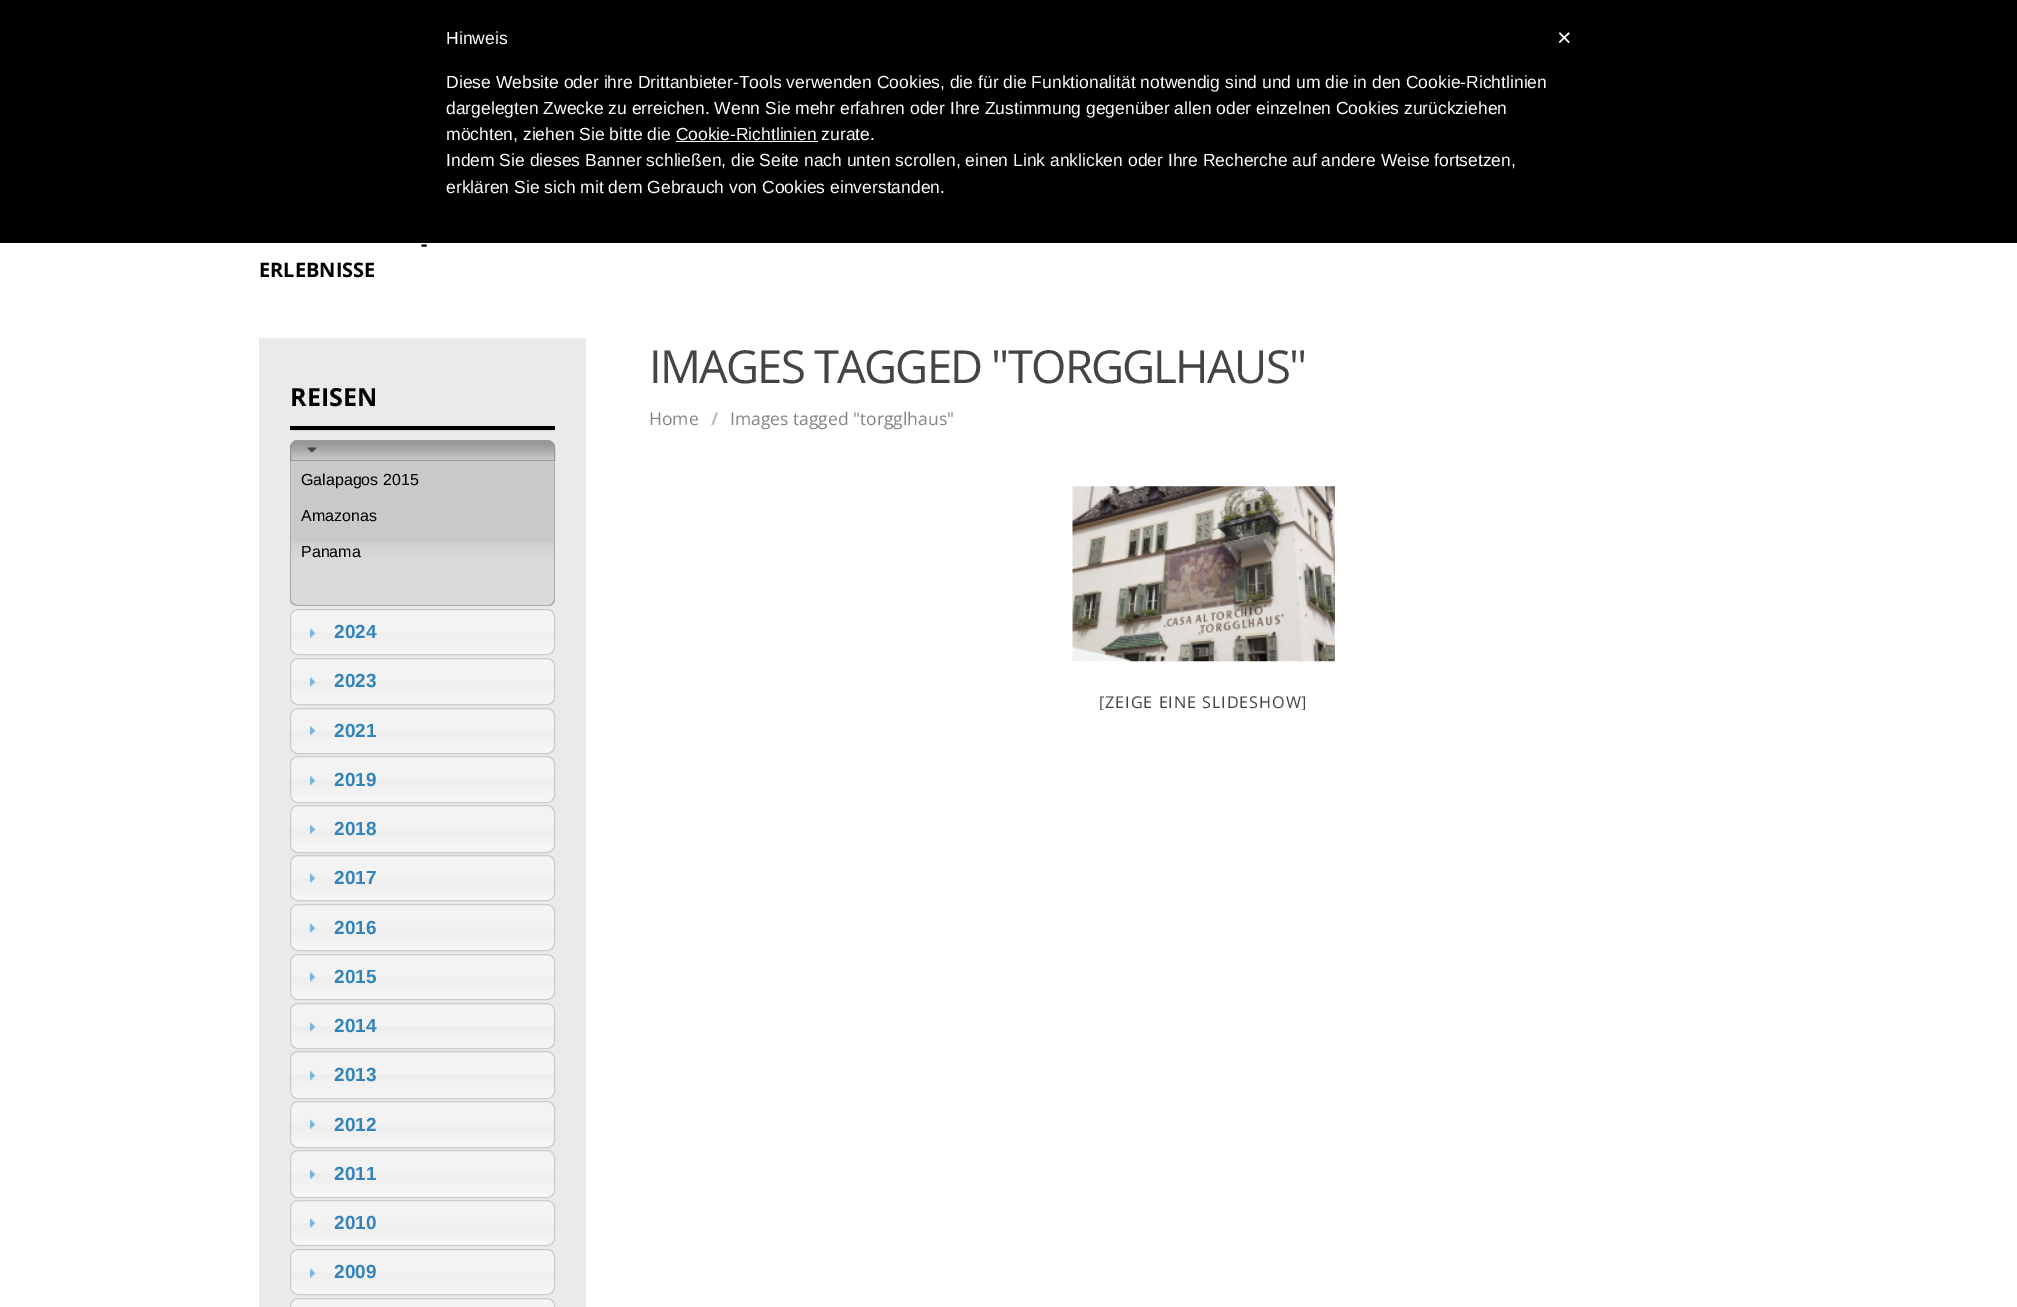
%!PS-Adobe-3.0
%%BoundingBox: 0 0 2017 1307
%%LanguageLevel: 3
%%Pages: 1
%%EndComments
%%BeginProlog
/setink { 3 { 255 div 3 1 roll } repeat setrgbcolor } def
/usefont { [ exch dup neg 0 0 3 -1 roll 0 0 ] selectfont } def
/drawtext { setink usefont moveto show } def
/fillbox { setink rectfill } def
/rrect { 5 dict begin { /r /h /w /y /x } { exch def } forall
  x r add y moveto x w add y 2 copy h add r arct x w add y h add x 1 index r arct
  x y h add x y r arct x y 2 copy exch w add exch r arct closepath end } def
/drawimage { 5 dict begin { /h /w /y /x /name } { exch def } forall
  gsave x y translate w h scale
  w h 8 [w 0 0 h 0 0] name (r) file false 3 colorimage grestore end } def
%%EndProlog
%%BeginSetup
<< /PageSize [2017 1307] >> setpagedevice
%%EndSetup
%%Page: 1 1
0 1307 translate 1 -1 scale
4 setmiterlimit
0 0 2017 1307 255 255 255 fillbox
0 0 2017 243 0 0 0 fillbox
(Hinweis) 446 44 /LiberationSans-Regular 17.5 255 255 255 drawtext
(Diese Website oder ihre Drittanbieter-Tools verwenden Cookies, die für die Funktionalität notwendig sind und um die in den Cookie-Richtlinien) 446 88 /LiberationSans-Regular 17.5 255 255 255 drawtext
(dargelegten Zwecke zu erreichen. Wenn Sie mehr erfahren oder Ihre Zustimmung gegenüber allen oder einzelnen Cookies zurückziehen) 446 114 /LiberationSans-Regular 17.5 255 255 255 drawtext
(möchten, ziehen Sie bitte die Cookie-Richtlinien zurate.) 446 140 /LiberationSans-Regular 17.5 255 255 255 drawtext
676 141 142 1 255 255 255 fillbox
(Indem Sie dieses Banner schließen, die Seite nach unten scrollen, einen Link anklicken oder Ihre Recherche auf andere Weise fortsetzen,) 446 166 /LiberationSans-Regular 17.5 255 255 255 drawtext
(erklären Sie sich mit dem Gebrauch von Cookies einverstanden.) 446 193 /LiberationSans-Regular 17.5 255 255 255 drawtext
(×) 1557 46 /LiberationSans-Regular 25 255 255 255 drawtext
(-) 421 251 /OpenSans-Bold 20 0 0 0 drawtext
(ERLEBNISSE) 259 277 /OpenSans-Bold 20 0 0 0 drawtext
259 338 327 969 234 234 234 fillbox
290 430 265 1 211 211 211 fillbox
290 426 265 4 0 0 0 fillbox
(REISEN) 290 406 /OpenSans-Bold 25 0 0 0 drawtext
(assets/img1.rgb) 290 440 265 20 drawimage
153 153 153 setink
298 440.5 moveto 547 440.5 lineto 551 440.5 554.5 444 554.5 448 curveto 554.5 460.5 lineto 290.5 460.5 lineto 290.5 448 lineto 290.5 444 294 440.5 298 440.5 curveto closepath stroke
(assets/img2.rgb) 307 447 10 6 drawimage
201 201 201 setink
290 461 moveto 555 461 lineto 555 598 lineto 555 602.5 551.5 606 547 606 curveto 298 606 lineto 293.5 606 290 602.5 290 598 curveto closepath fill
(assets/img3.rgb) 290 542 265 63 drawimage
170 170 170 setink
290 461 moveto 555 461 lineto 555 599 lineto 555 603 552 606 548 606 curveto 298 606 lineto 293 606 290 603 290 599 curveto closepath 291 461 moveto 554 461 lineto 554 599 lineto 554 602 551 605 548 605 curveto 298 605 lineto 294 605 291 602 291 599 curveto closepath eofill
(Galapagos 2015) 301 485 /LiberationSans-Regular 16 0 0 0 drawtext
(Amazonas) 301 521 /LiberationSans-Regular 16 0 0 0 drawtext
(Panama) 301 557 /LiberationSans-Regular 16 0 0 0 drawtext
(assets/img4.rgb) 290 609 265 46 drawimage
204 204 204 setink
290.5 609.5 264 45 7.5 rrect stroke
(assets/img5.rgb) 309 628 7 10 drawimage
(2024) 334 638 /LiberationSans-Bold 19 51 131 187 drawtext
(assets/img6.rgb) 290 658 265 47 drawimage
204 204 204 setink
290.5 658.5 264 46 7.5 rrect stroke
(assets/img7.rgb) 309 677 7 10 drawimage
(2023) 334 687 /LiberationSans-Bold 19 51 131 187 drawtext
(assets/img8.rgb) 290 708 265 45 drawimage
204 204 204 setink
290.5 708.5 264 45 7.5 rrect stroke
(assets/img9.rgb) 309 726 7 10 drawimage
(2021) 334 737 /LiberationSans-Bold 19 51 131 187 drawtext
(assets/img10.rgb) 290 757 265 45 drawimage
204 204 204 setink
290.5 756.5 264 46 7.5 rrect stroke
(assets/img11.rgb) 309 776 7 10 drawimage
(2019) 334 786 /LiberationSans-Bold 19 51 131 187 drawtext
(assets/img12.rgb) 290 805 265 47 drawimage
204 204 204 setink
290.5 805.5 264 47 7.5 rrect stroke
(assets/img13.rgb) 309 824 7 10 drawimage
(2018) 334 835 /LiberationSans-Bold 19 51 131 187 drawtext
(assets/img14.rgb) 290 855 265 46 drawimage
204 204 204 setink
290.5 855.5 264 45 7.5 rrect stroke
(assets/img15.rgb) 309 873 7 10 drawimage
(2017) 334 884 /LiberationSans-Bold 19 51 131 187 drawtext
(assets/img16.rgb) 290 904 265 47 drawimage
204 204 204 setink
290.5 904.5 264 46 7.5 rrect stroke
(assets/img5.rgb) 309 923 7 10 drawimage
(2016) 334 934 /LiberationSans-Bold 19 51 131 187 drawtext
(assets/img4.rgb) 290 954 265 46 drawimage
204 204 204 setink
290.5 954.5 264 45 7.5 rrect stroke
(assets/img17.rgb) 309 972 7 10 drawimage
(2015) 334 983 /LiberationSans-Bold 19 51 131 187 drawtext
(assets/img8.rgb) 290 1003 265 45 drawimage
204 204 204 setink
290.5 1003.5 264 45 7.5 rrect stroke
(assets/img7.rgb) 309 1022 7 10 drawimage
(2014) 334 1032 /LiberationSans-Bold 19 51 131 187 drawtext
(assets/img18.rgb) 290 1052 265 46 drawimage
204 204 204 setink
290.5 1051.5 264 47 7.5 rrect stroke
(assets/img11.rgb) 309 1071 7 10 drawimage
(2013) 334 1081 /LiberationSans-Bold 19 51 131 187 drawtext
(assets/img19.rgb) 290 1102 265 45 drawimage
204 204 204 setink
290.5 1101.5 264 46 7.5 rrect stroke
(assets/img20.rgb) 309 1119 7 10 drawimage
(2012) 334 1131 /LiberationSans-Bold 19 51 131 187 drawtext
(assets/img12.rgb) 290 1150 265 47 drawimage
204 204 204 setink
290.5 1150.5 264 47 7.5 rrect stroke
(assets/img21.rgb) 309 1169 7 10 drawimage
(2011) 334 1180 /LiberationSans-Bold 19 51 131 187 drawtext
(assets/img14.rgb) 290 1200 265 46 drawimage
204 204 204 setink
290.5 1200.5 264 45 7.5 rrect stroke
(assets/img15.rgb) 309 1218 7 10 drawimage
(2010) 334 1229 /LiberationSans-Bold 19 51 131 187 drawtext
(assets/img4.rgb) 290 1249 265 46 drawimage
204 204 204 setink
290.5 1249.5 264 45 7.5 rrect stroke
(assets/img5.rgb) 309 1268 7 10 drawimage
(2009) 334 1278 /LiberationSans-Bold 19 51 131 187 drawtext
(assets/img22.rgb) 290 1298 265 9 drawimage
204 204 204 setink
290.5 1298.5 264 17 7.5 rrect stroke
/OpenSans-Regular 45.5 usefont
68 68 68 setink
649 383 moveto -1.8 0 (IMAGES TAGGED "TORGGLHAUS") ashow
(Home) 649 425 /OpenSans-Regular 17.5 133 133 133 drawtext
(/) 711 425 /OpenSans-Bold 17.5 189 189 189 drawtext
(Images tagged "torgglhaus") 730 425 /OpenSans-Regular 17.5 133 133 133 drawtext
(assets/img23.rgb) 1072 486 263 176 drawimage
gsave
649 484 1110 226 rectclip
/OpenSans-Regular 16.25 usefont
68 68 68 setink
1099 708 moveto 0.9 0 ([ZEIGE EINE SLIDESHOW]) ashow
grestore
showpage
%%EOF
